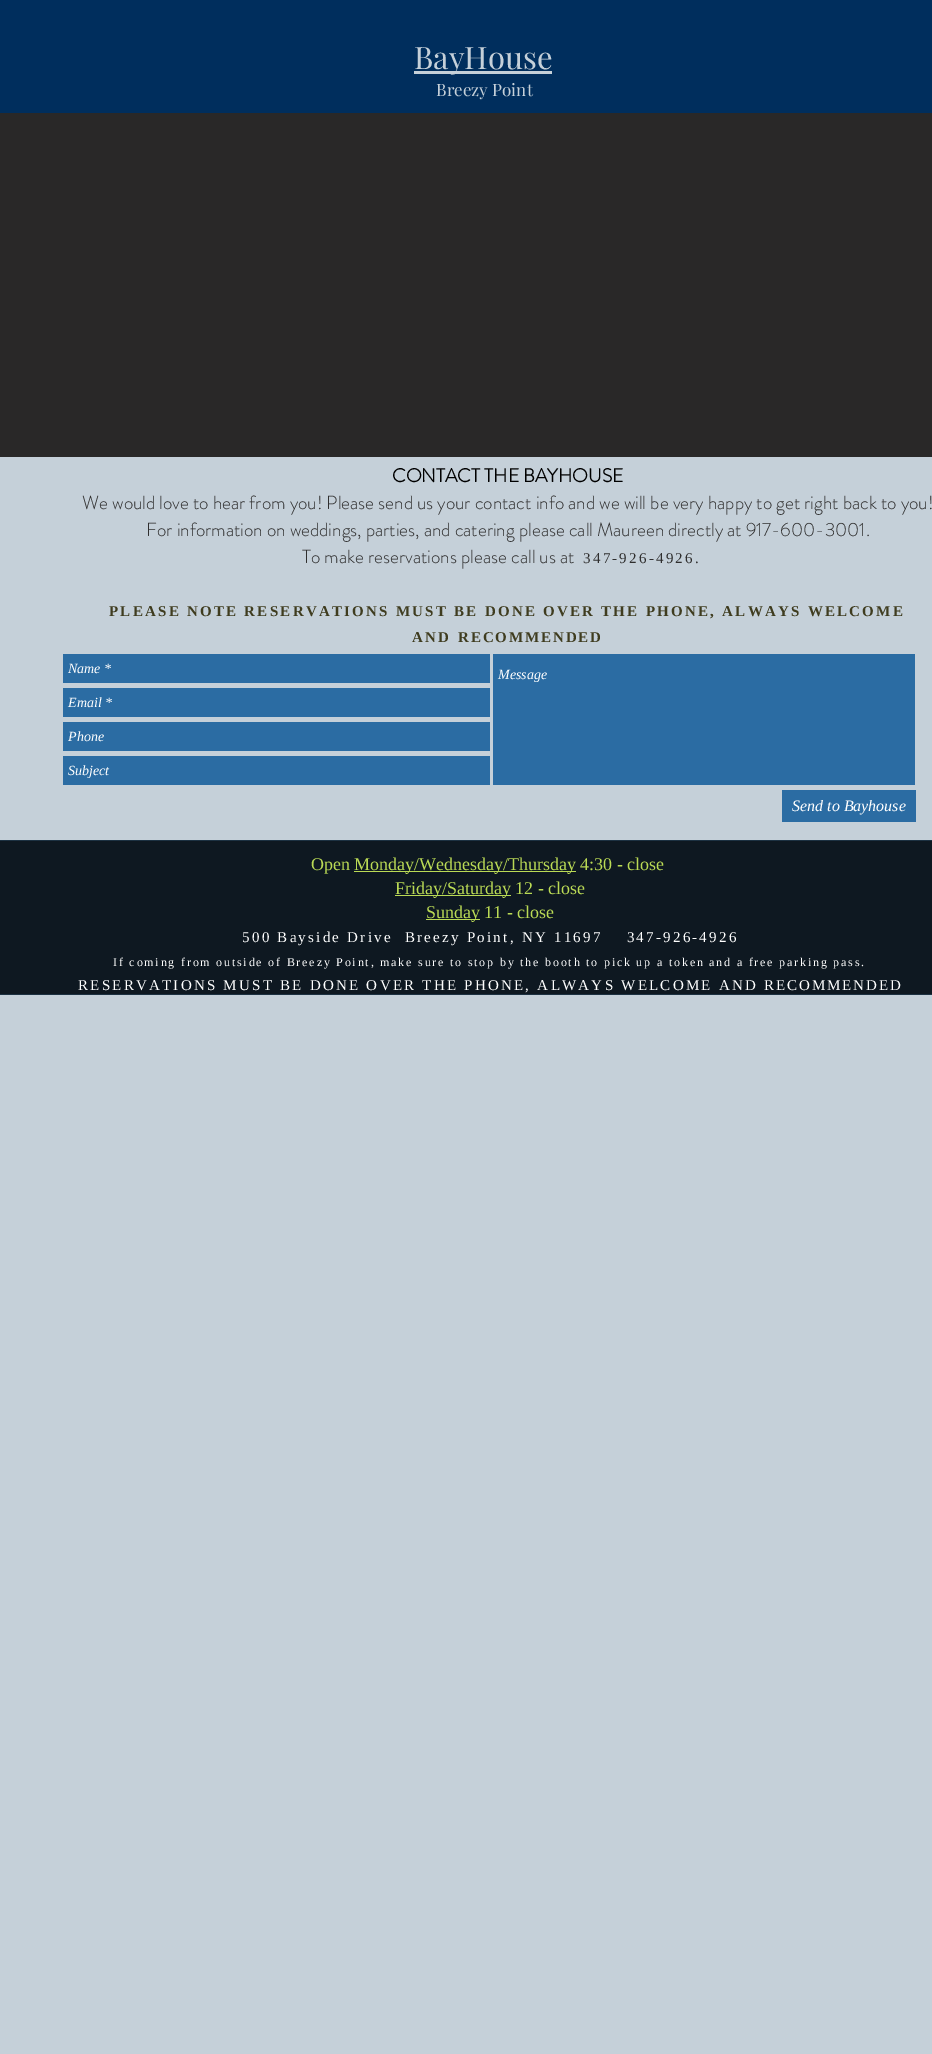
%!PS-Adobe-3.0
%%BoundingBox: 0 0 932 2054
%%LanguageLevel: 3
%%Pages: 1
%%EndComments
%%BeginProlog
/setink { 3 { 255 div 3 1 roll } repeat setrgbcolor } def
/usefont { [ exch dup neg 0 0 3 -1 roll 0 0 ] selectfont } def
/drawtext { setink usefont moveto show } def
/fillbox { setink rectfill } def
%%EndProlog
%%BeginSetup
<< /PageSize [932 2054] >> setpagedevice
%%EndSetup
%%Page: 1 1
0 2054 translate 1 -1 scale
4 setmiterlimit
0 0 932 2054 197 208 217 fillbox
0 0 932 113 0 46 93 fillbox
414 71 138 3 197 208 217 fillbox
(BayHouse) 414 69 /PlayfairDisplay-Regular 31 197 208 217 drawtext
(Breezy Point) 436 96 /PlayfairDisplay-Regular 17 197 208 217 drawtext
0 113 932 344 41 40 40 fillbox
(CONTACT THE BAYHOUSE) 392 482 /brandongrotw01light-Bold 19 0 0 0 drawtext
(We would love to hear from you! Please send us your contact info and we will be very happy to get right back to you!) 82 509 /brandongrotw01light-Light 19 47 46 46 drawtext
(For information on weddings, parties, and catering please call Maureen directly at 917-600-3001.) 146 536 /brandongrotw01light-Light 19 47 46 46 drawtext
(To make reservations please call us at) 302 563 /brandongrotw01light-Light 19 47 46 46 drawtext
/LiberationSerif-Regular 15 usefont
583 563 moveto 2.25 0 (347-926-4926.) ashow
/LiberationSerif-Bold 15 usefont
63 60 31 setink
109 616 moveto 2.25 0 (PLEASE NOTE RESERVATIONS MUST BE DONE OVER THE PHONE, ALWAYS WELCOME) ashow
412 642 moveto 2.25 0 (AND) ashow
458 642 moveto 1.9 0 (RECOMMENDED) ashow
63 654 427 29 43 108 163 fillbox
(Name *) 68 673 /LiberationSerif-Italic 14 255 255 255 drawtext
493 654 422 131 43 108 163 fillbox
(Message) 498 679 /LiberationSerif-Italic 14 255 255 255 drawtext
63 688 427 29 43 108 163 fillbox
(Email *) 68 707 /LiberationSerif-Italic 14 255 255 255 drawtext
63 722 427 29 43 108 163 fillbox
(Phone) 68 741 /LiberationSerif-Italic 14 255 255 255 drawtext
63 756 427 29 43 108 163 fillbox
(Subject) 68 775 /LiberationSerif-Italic 14 255 255 255 drawtext
782 790 134 32 43 108 163 fillbox
(Send to Bayhouse) 792 811 /LiberationSerif-Italic 16 255 255 255 drawtext
0 841 932 153 14 24 33 fillbox
0 840 932 1 28 49 66 fillbox
0 994 932 1 28 49 66 fillbox
(Open) 311 870 /LiberationSerif-Regular 18 186 218 85 drawtext
354 871 222 1 186 218 85 fillbox
(Monday/Wednesday/Thursday 4:30 - close) 354 870 /LiberationSerif-Regular 18 186 218 85 drawtext
395 895 116 1 186 218 85 fillbox
(Friday/Saturday 12 - close) 395 894 /LiberationSerif-Regular 18 186 218 85 drawtext
426 919 54 1 186 218 85 fillbox
(Sunday 11 - close) 426 918 /LiberationSerif-Regular 18 186 218 85 drawtext
/LiberationSerif-Regular 15 usefont
255 255 255 setink
242 942 moveto 2.25 0 (500 Bayside Drive  Breezy Point, NY 11697    347-926-4926) ashow
/LiberationSerif-Regular 12 usefont
113 966 moveto 1.8 0 (If coming from outside of Breezy Point, make sure to stop by the booth to pick up a token and a free parking pass.) ashow
/LiberationSerif-Regular 15 usefont
78 990 moveto 2.25 0 (RESERVATIONS MUST BE DONE OVER THE PHONE, ALWAYS WELCOME AND) ashow
764 990 moveto 1.9 0 (RECOMMENDED) ashow
showpage
%%EOF
